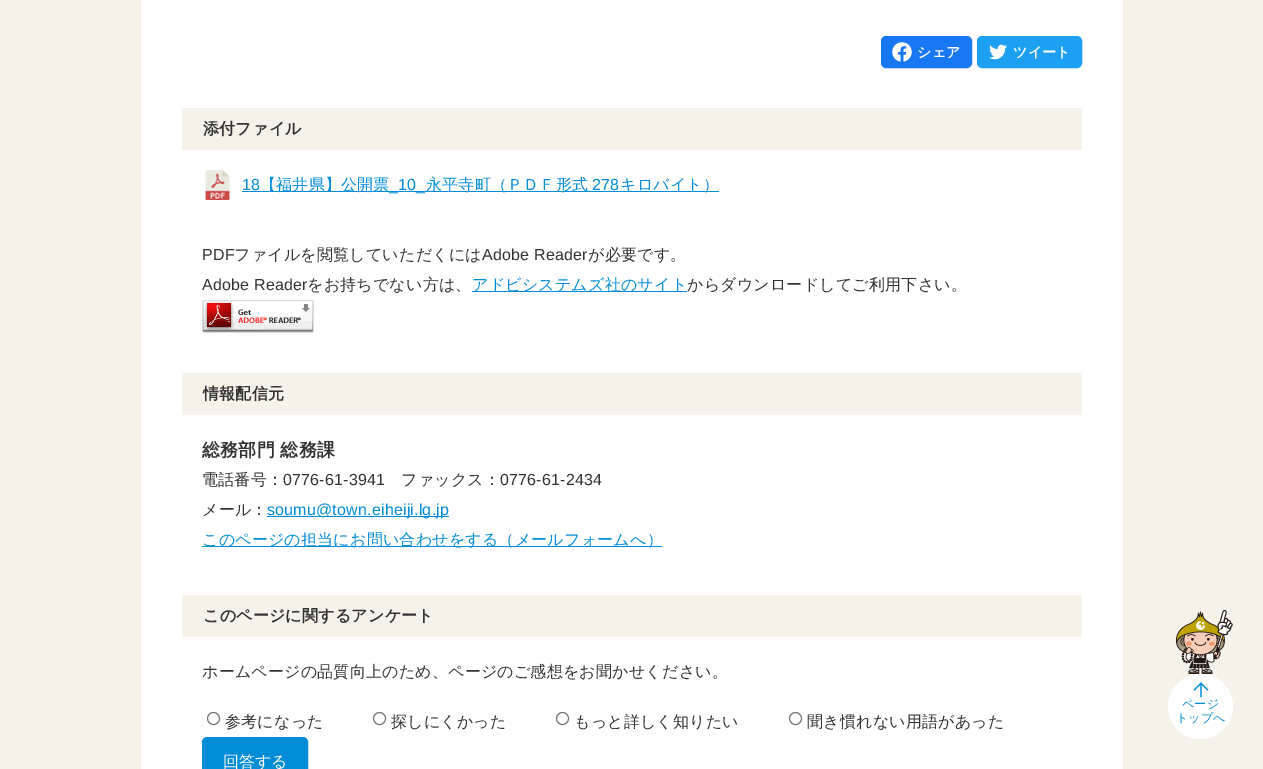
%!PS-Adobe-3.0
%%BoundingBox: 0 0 1263 769
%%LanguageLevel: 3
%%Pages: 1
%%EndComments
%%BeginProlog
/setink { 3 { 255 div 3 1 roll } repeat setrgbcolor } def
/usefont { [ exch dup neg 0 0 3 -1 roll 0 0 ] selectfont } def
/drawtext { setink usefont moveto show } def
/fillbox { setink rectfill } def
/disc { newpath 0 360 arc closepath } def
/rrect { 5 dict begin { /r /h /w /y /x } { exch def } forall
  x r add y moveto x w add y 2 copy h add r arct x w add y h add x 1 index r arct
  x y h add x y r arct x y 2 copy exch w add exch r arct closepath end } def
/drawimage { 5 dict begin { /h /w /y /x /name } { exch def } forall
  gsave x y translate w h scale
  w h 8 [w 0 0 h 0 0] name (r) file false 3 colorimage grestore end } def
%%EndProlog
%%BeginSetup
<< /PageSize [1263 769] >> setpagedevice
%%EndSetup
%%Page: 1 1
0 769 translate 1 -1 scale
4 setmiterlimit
0 0 1263 769 245 243 233 fillbox
141 0 982 769 255 255 255 fillbox
24 119 242 setink
881.5 36.5 90 31 4.5 rrect gsave fill grestore
stroke
(assets/img1.rgb) 892 42 20 20 drawimage
/WenQuanYiZenHei-Bold 14 usefont
255 255 255 setink
917 57 moveto 0.2 0 (シェア) ashow
29 160 241 setink
977.5 36.5 104 31 4.5 rrect gsave fill grestore
stroke
(assets/img2.rgb) 989 44 18 16 drawimage
255 255 255 setink
1013 57 moveto 0.2 0 (ツイート) ashow
182 108 900 42 245 243 233 fillbox
/WenQuanYiZenHei-Bold 16 usefont
51 51 51 setink
203 134 moveto 0.2 0 (添付ファイル) ashow
(assets/img3.rgb) 204 170 27 30 drawimage
/LiberationSans-Regular 16 usefont
0 140 214 setink
242 190 moveto 0.2 0 (18) ashow
242 191 477 1 0 140 214 fillbox
/WenQuanYiZenHei-Medium 16 usefont
260 190 moveto 0.2 0 (【福井県】公開票) ashow
/LiberationSans-Regular 16 usefont
389 190 moveto 0.2 0 (_10_) ashow
/WenQuanYiZenHei-Medium 16 usefont
426 190 moveto 0.2 0 (永平寺町（ＰＤＦ形式) ashow
/LiberationSans-Regular 16 usefont
592 190 moveto 0.2 0 (278) ashow
/WenQuanYiZenHei-Medium 16 usefont
620 190 moveto 0.2 0 (キロバイト）) ashow
/LiberationSans-Regular 16 usefont
51 51 51 setink
202 260 moveto 0.2 0 (PDF) ashow
/WenQuanYiZenHei-Medium 16 usefont
234 260 moveto 0.2 0 (ファイルを閲覧していただくには) ashow
/LiberationSans-Regular 16 usefont
482 260 moveto 0.2 0 (Adobe Reader) ashow
/WenQuanYiZenHei-Medium 16 usefont
588 260 moveto 0.2 0 (が必要です。) ashow
/LiberationSans-Regular 16 usefont
202 290 moveto 0.2 0 (Adobe Reader) ashow
/WenQuanYiZenHei-Medium 16 usefont
307 290 moveto 0.2 0 (をお持ちでない方は、) ashow
472 291 215 1 0 140 214 fillbox
472 290 moveto 0.2 0 (アドビシステムズ社のサイト) ashow
51 51 51 setink
687 290 moveto 0.2 0 (からダウンロードしてご利用下さい。) ashow
(assets/img4.rgb) 202 300 112 33 drawimage
182 373 900 42 245 243 233 fillbox
/WenQuanYiZenHei-Bold 16 usefont
51 51 51 setink
203 399 moveto 0.2 0 (情報配信元) ashow
/WenQuanYiZenHei-Bold 18 usefont
202 456 moveto 0.2 0 (総務部門 総務課) ashow
/WenQuanYiZenHei-Medium 16 usefont
202 485 moveto 0.2 0 (電話番号：) ashow
/LiberationSans-Regular 16 usefont
283 485 moveto 0.2 0 (0776-61-3941) ashow
/WenQuanYiZenHei-Medium 16 usefont
401 485 moveto 0.2 0 (ファックス：) ashow
/LiberationSans-Regular 16 usefont
500 485 moveto 0.2 0 (0776-61-2434) ashow
/WenQuanYiZenHei-Medium 16 usefont
202 515 moveto 0.2 0 (メール：) ashow
267 516 182 1 0 140 214 fillbox
/LiberationSans-Regular 16 usefont
267 515 moveto 0.2 0 (soumu@town.eiheiji.lg.jp) ashow
202 546 460 1 0 140 214 fillbox
/WenQuanYiZenHei-Medium 16 usefont
202 545 moveto 0.2 0 (このページの担当にお問い合わせをする（メールフォームへ）) ashow
182 595 900 42 245 243 233 fillbox
/WenQuanYiZenHei-Bold 16 usefont
51 51 51 setink
203 621 moveto 0.2 0 (このページに関するアンケート) ashow
/WenQuanYiZenHei-Medium 16 usefont
202 677 moveto 0.2 0 (ホームページの品質向上のため、ページのご感想をお聞かせください。) ashow
118 118 118 setink
213.5 718.5 6 disc stroke
51 51 51 setink
225 727 moveto 0.2 0 (参考になった) ashow
118 118 118 setink
379.5 718.5 6 disc stroke
51 51 51 setink
391 727 moveto 0.2 0 (探しにくかった) ashow
118 118 118 setink
562.5 718.5 6 disc stroke
51 51 51 setink
574 727 moveto 0.2 0 (もっと詳しく知りたい) ashow
118 118 118 setink
795.5 718.5 6 disc stroke
51 51 51 setink
807 727 moveto 0.2 0 (聞き慣れない用語があった) ashow
0 140 214 setink
202.5 737.5 105 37 4.5 rrect gsave fill grestore
stroke
(回答する) 223 767 /WenQuanYiZenHei-Medium 16 255 255 255 drawtext
1200.5 706.5 32.5 disc fill
(assets/img5.rgb) 1193 682 16 16 drawimage
(assets/img6.rgb) 1176 610 57 64 drawimage
/WenQuanYiZenHei-Medium 12 usefont
0 140 214 setink
1182 708 moveto 0.2 0 (ページ) ashow
1176 722 moveto 0.2 0 (トップへ) ashow
showpage
%%EOF
